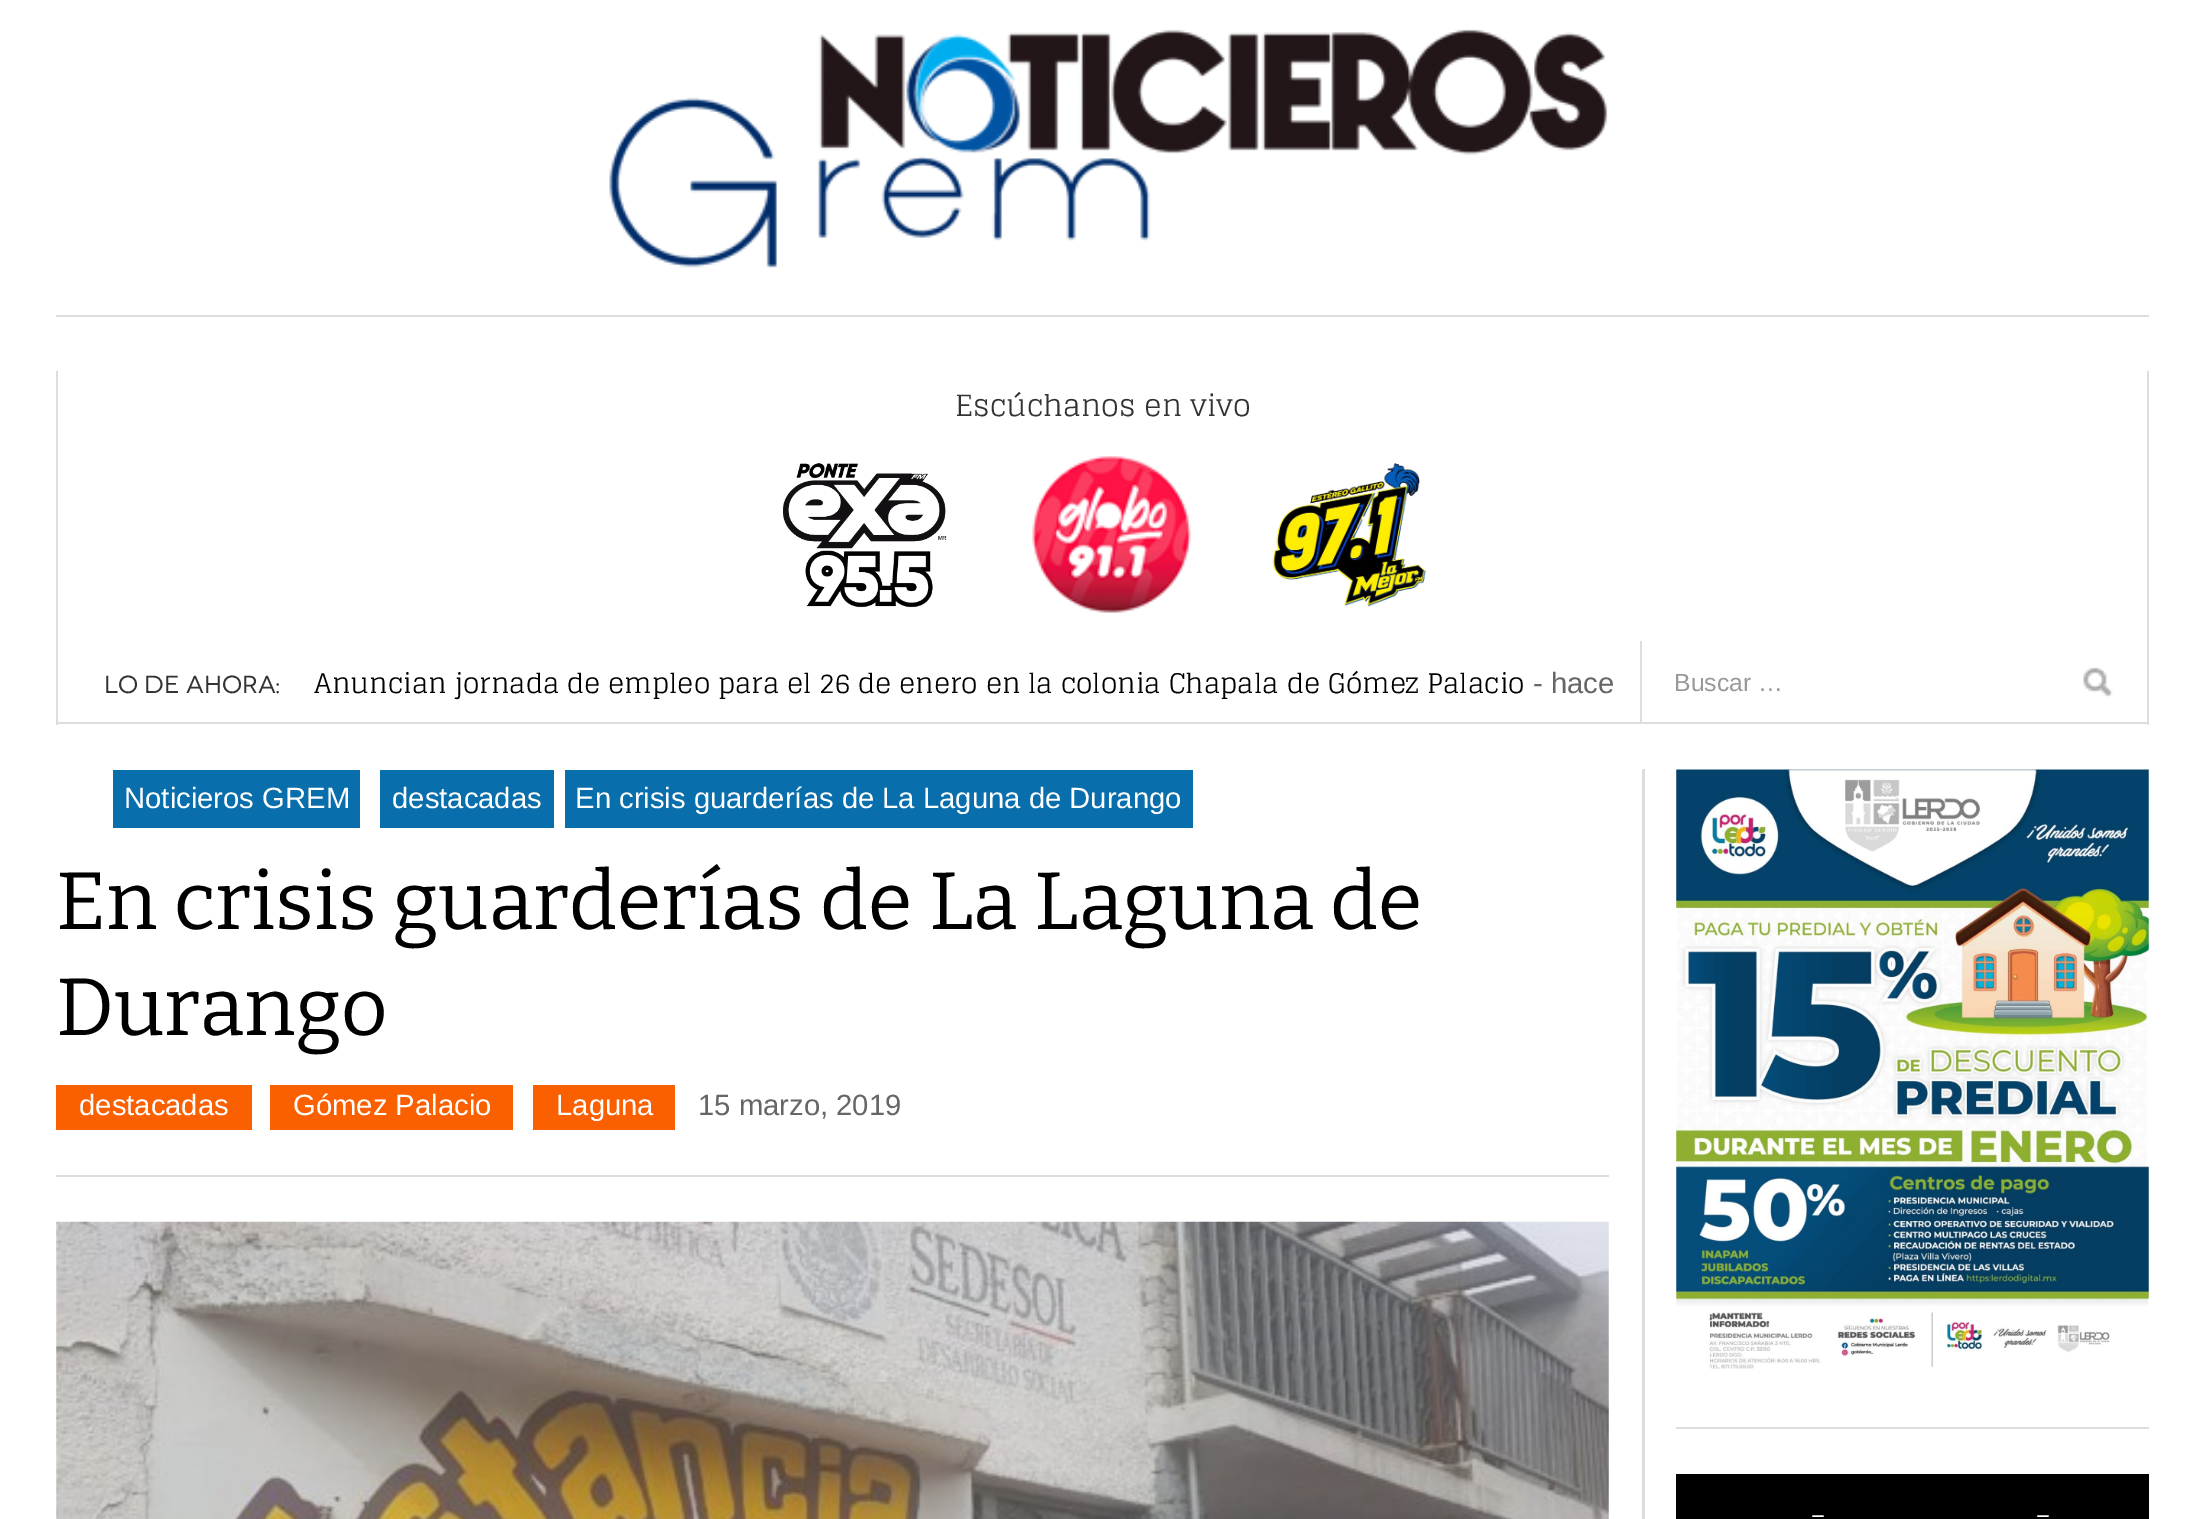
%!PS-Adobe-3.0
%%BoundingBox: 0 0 2205 1519
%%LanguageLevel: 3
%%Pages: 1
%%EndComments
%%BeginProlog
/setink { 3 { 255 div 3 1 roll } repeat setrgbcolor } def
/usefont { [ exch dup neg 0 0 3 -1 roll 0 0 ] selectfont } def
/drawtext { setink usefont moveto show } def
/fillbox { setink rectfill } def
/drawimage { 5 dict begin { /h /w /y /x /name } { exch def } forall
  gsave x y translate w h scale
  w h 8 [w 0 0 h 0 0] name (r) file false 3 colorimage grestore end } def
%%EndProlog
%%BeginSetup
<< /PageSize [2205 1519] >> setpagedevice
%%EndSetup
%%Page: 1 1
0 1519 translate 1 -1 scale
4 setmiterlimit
0 0 2205 1519 255 255 255 fillbox
56 315 2093 2 221 221 221 fillbox
(assets/img1.rgb) 609 29 999 239 drawimage
(Escúchanos en vivo) 955 416 /Glegoo-Regular 29.25 51 51 51 drawtext
(assets/img2.rgb) 783 463 164 145 drawimage
(assets/img3.rgb) 1032 456 160 157 drawimage
(assets/img4.rgb) 1272 463 154 144 drawimage
2147 371 2 354 221 221 221 fillbox
56 722 2093 2 221 221 221 fillbox
56 371 2 354 221 221 221 fillbox
(LO DE AHORA:) 104 693 /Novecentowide-Regular 24.75 51 51 51 drawtext
(Anuncian jornada de empleo para el 26 de enero en la colonia Chapala de Gómez Palacio) 314 693 /Glegoo-Regular 27 0 0 0 drawtext
(- hace) 1533 693 /LiberationSans-Regular 29.25 102 102 102 drawtext
1640 641 2 81 221 221 221 fillbox
(Buscar …) 1674 691 /LiberationSans-Regular 24.75 153 153 153 drawtext
(assets/img5.rgb) 2083 667 30 31 drawimage
1642 769 3 750 221 221 221 fillbox
113 770 247 58 9 111 172 fillbox
(Noticieros GREM) 124 808 /LiberationSans-Regular 29.25 255 255 255 drawtext
380 770 174 58 9 111 172 fillbox
(destacadas) 392 808 /LiberationSans-Regular 29.25 255 255 255 drawtext
565 770 628 58 9 111 172 fillbox
(En crisis guarderías de La Laguna de Durango) 575 808 /LiberationSans-Regular 29.25 255 255 255 drawtext
(En crisis guarderías de La Laguna de) 56 929 /Bitter-Regular 81 0 0 0 drawtext
(Durango) 56 1035 /Bitter-Regular 81 0 0 0 drawtext
56 1175 1553 2 221 221 221 fillbox
56 1085 196 45 250 95 0 fillbox
(destacadas) 79 1115 /LiberationSans-Regular 29.25 255 255 255 drawtext
270 1085 243 45 250 95 0 fillbox
(Gómez Palacio) 293 1115 /LiberationSans-Regular 29.25 255 255 255 drawtext
533 1085 142 45 250 95 0 fillbox
(Laguna) 556 1115 /LiberationSans-Regular 29.25 255 255 255 drawtext
(15 marzo, 2019) 698 1115 /LiberationSans-Regular 29.25 102 102 102 drawtext
(assets/img6.rgb) 56 1221 1553 298 drawimage
(assets/img7.rgb) 1676 769 473 600 drawimage
1676 1427 473 2 221 221 221 fillbox
1676 1474 473 45 0 0 0 fillbox
(-) 1810 1525 /Novecentowide-Regular 24.75 255 255 255 drawtext
(-) 2035 1525 /Novecentowide-Regular 24.75 255 255 255 drawtext
showpage
%%EOF
